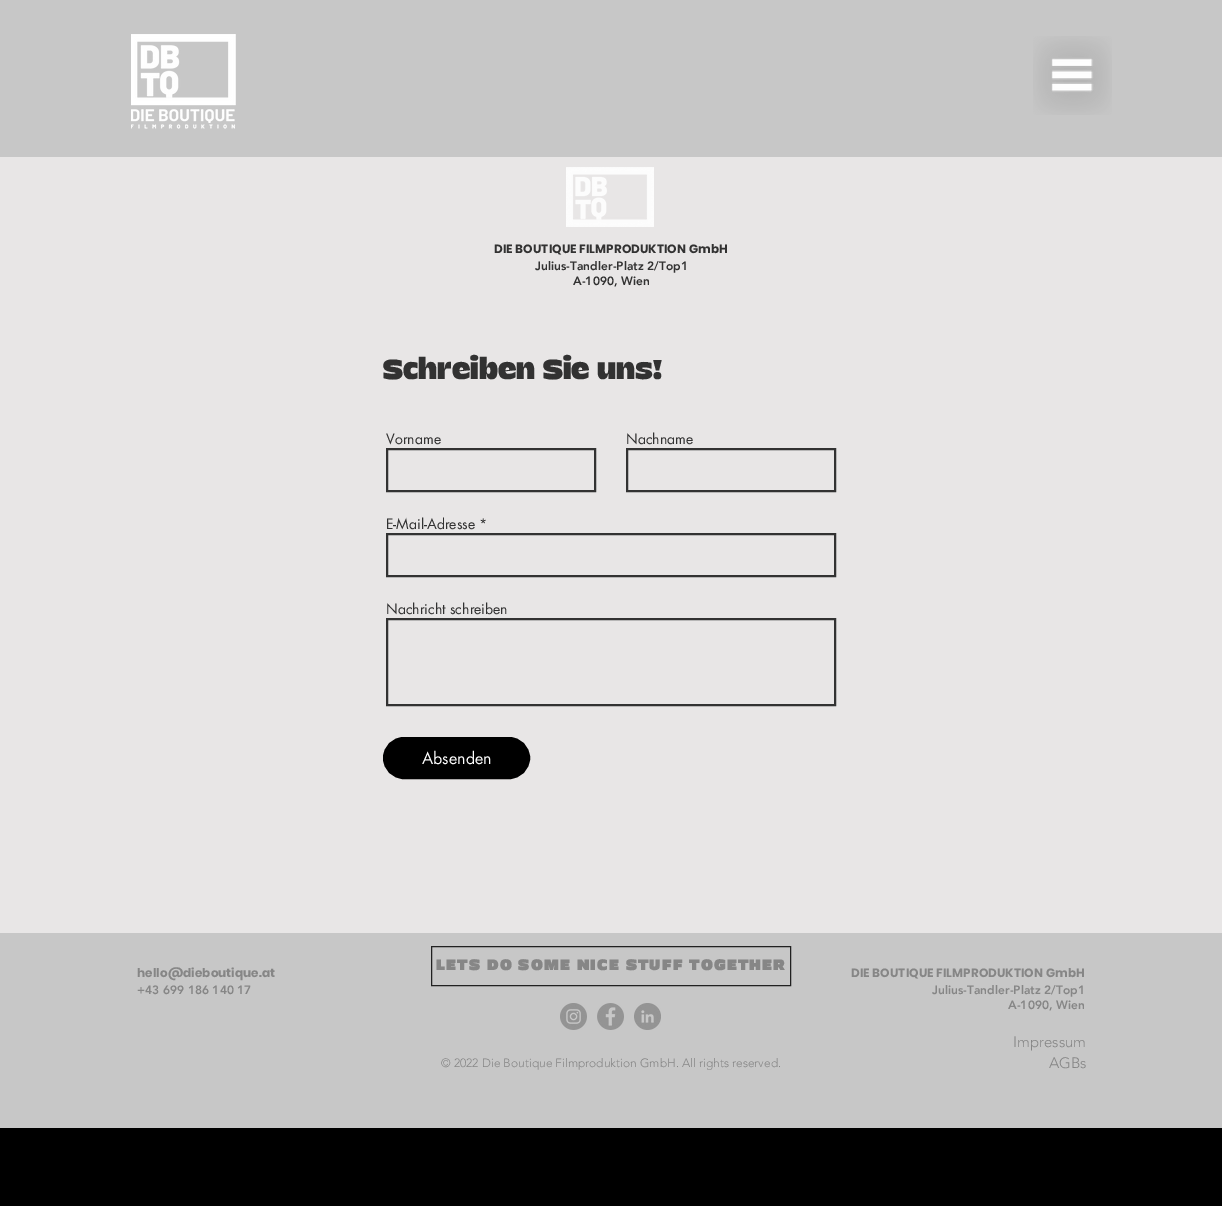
%!PS-Adobe-3.0
%%BoundingBox: 0 0 1222 1206
%%LanguageLevel: 3
%%Pages: 1
%%EndComments
%%BeginProlog
/setink { 3 { 255 div 3 1 roll } repeat setrgbcolor } def
/usefont { [ exch dup neg 0 0 3 -1 roll 0 0 ] selectfont } def
/drawtext { setink usefont moveto show } def
/fillbox { setink rectfill } def
/rrect { 5 dict begin { /r /h /w /y /x } { exch def } forall
  x r add y moveto x w add y 2 copy h add r arct x w add y h add x 1 index r arct
  x y h add x y r arct x y 2 copy exch w add exch r arct closepath end } def
/drawimage { 5 dict begin { /h /w /y /x /name } { exch def } forall
  gsave x y translate w h scale
  w h 8 [w 0 0 h 0 0] name (r) file false 3 colorimage grestore end } def
%%EndProlog
%%BeginSetup
<< /PageSize [1222 1206] >> setpagedevice
%%EndSetup
%%Page: 1 1
0 1206 translate 1 -1 scale
4 setmiterlimit
0 0 1222 1206 0 0 0 fillbox
0 0 1222 157 199 199 199 fillbox
(assets/img1.rgb) 131 34 105 95 drawimage
(assets/img2.rgb) 1033 36 79 79 drawimage
0 157 1222 776 232 230 230 fillbox
(assets/img3.rgb) 566 167 88 60 drawimage
/Poppins-Bold 12 usefont
50 50 50 setink
494 253 moveto 0.1 0 (DIE BOUTIQUE FILMPRODUKTION GmbH) ashow
(Julius-Tandler-Platz 2/Top1) 535 270 /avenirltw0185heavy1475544-Black 12 50 50 50 drawtext
(A-1090, Wien) 573 285 /avenirltw0185heavy1475544-Black 12 50 50 50 drawtext
(Schreiben Sie uns!) 383 379 /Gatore-Regular 30 50 50 50 drawtext
(Vorname) 386 444 /futura-Regular 14 50 50 50 drawtext
2 setlinewidth
387 449 208 42 rectstroke
(Nachname) 626 444 /futura-Regular 14 50 50 50 drawtext
627 449 208 42 rectstroke
(E-Mail-Adresse *) 386 529 /futura-Regular 14 50 50 50 drawtext
387 534 448 42 rectstroke
(Nachricht schreiben) 386 614 /futura-Regular 14 50 50 50 drawtext
387 619 448 86 rectstroke
0 0 0 setink
384 738 145 40 20 rrect gsave fill grestore
stroke
(Absenden) 422 764 /futura-Regular 16 255 255 255 drawtext
0 933 1222 195 199 199 199 fillbox
33 33 33 setink
1 setlinewidth
431.5 946.5 359 39 rectstroke
/Gatore-Bold 16 usefont
134 134 134 setink
436 970 moveto 1.6 0 (LETS DO SOME NICE STUFF TOGETHER) ashow
/Poppins-Bold 12 usefont
137 977 moveto 0.1 0 (hello@dieboutique.at) ashow
(+43 699 186 140 17) 137 994 /avenirltw0185heavy1475544-Black 12 134 134 134 drawtext
/Poppins-Bold 12 usefont
851 977 moveto 0.1 0 (DIE BOUTIQUE FILMPRODUKTION GmbH) ashow
(Julius-Tandler-Platz 2/Top1) 932 994 /avenirltw0185heavy1475544-Black 12 134 134 134 drawtext
(A-1090, Wien) 1008 1009 /avenirltw0185heavy1475544-Black 12 134 134 134 drawtext
(assets/img4.rgb) 560 1003 27 27 drawimage
(assets/img5.rgb) 597 1003 27 27 drawimage
(assets/img6.rgb) 634 1003 27 27 drawimage
(Impressum) 1013 1047 /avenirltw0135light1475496-Light 15 134 134 134 drawtext
(© 2022 Die Boutique Filmproduktion GmbH. All rights reserved.) 441 1067 /avenirltw0135light1475496-Light 12 134 134 134 drawtext
(AGBs) 1049 1068 /avenirltw0135light1475496-Light 15 134 134 134 drawtext
showpage
%%EOF
